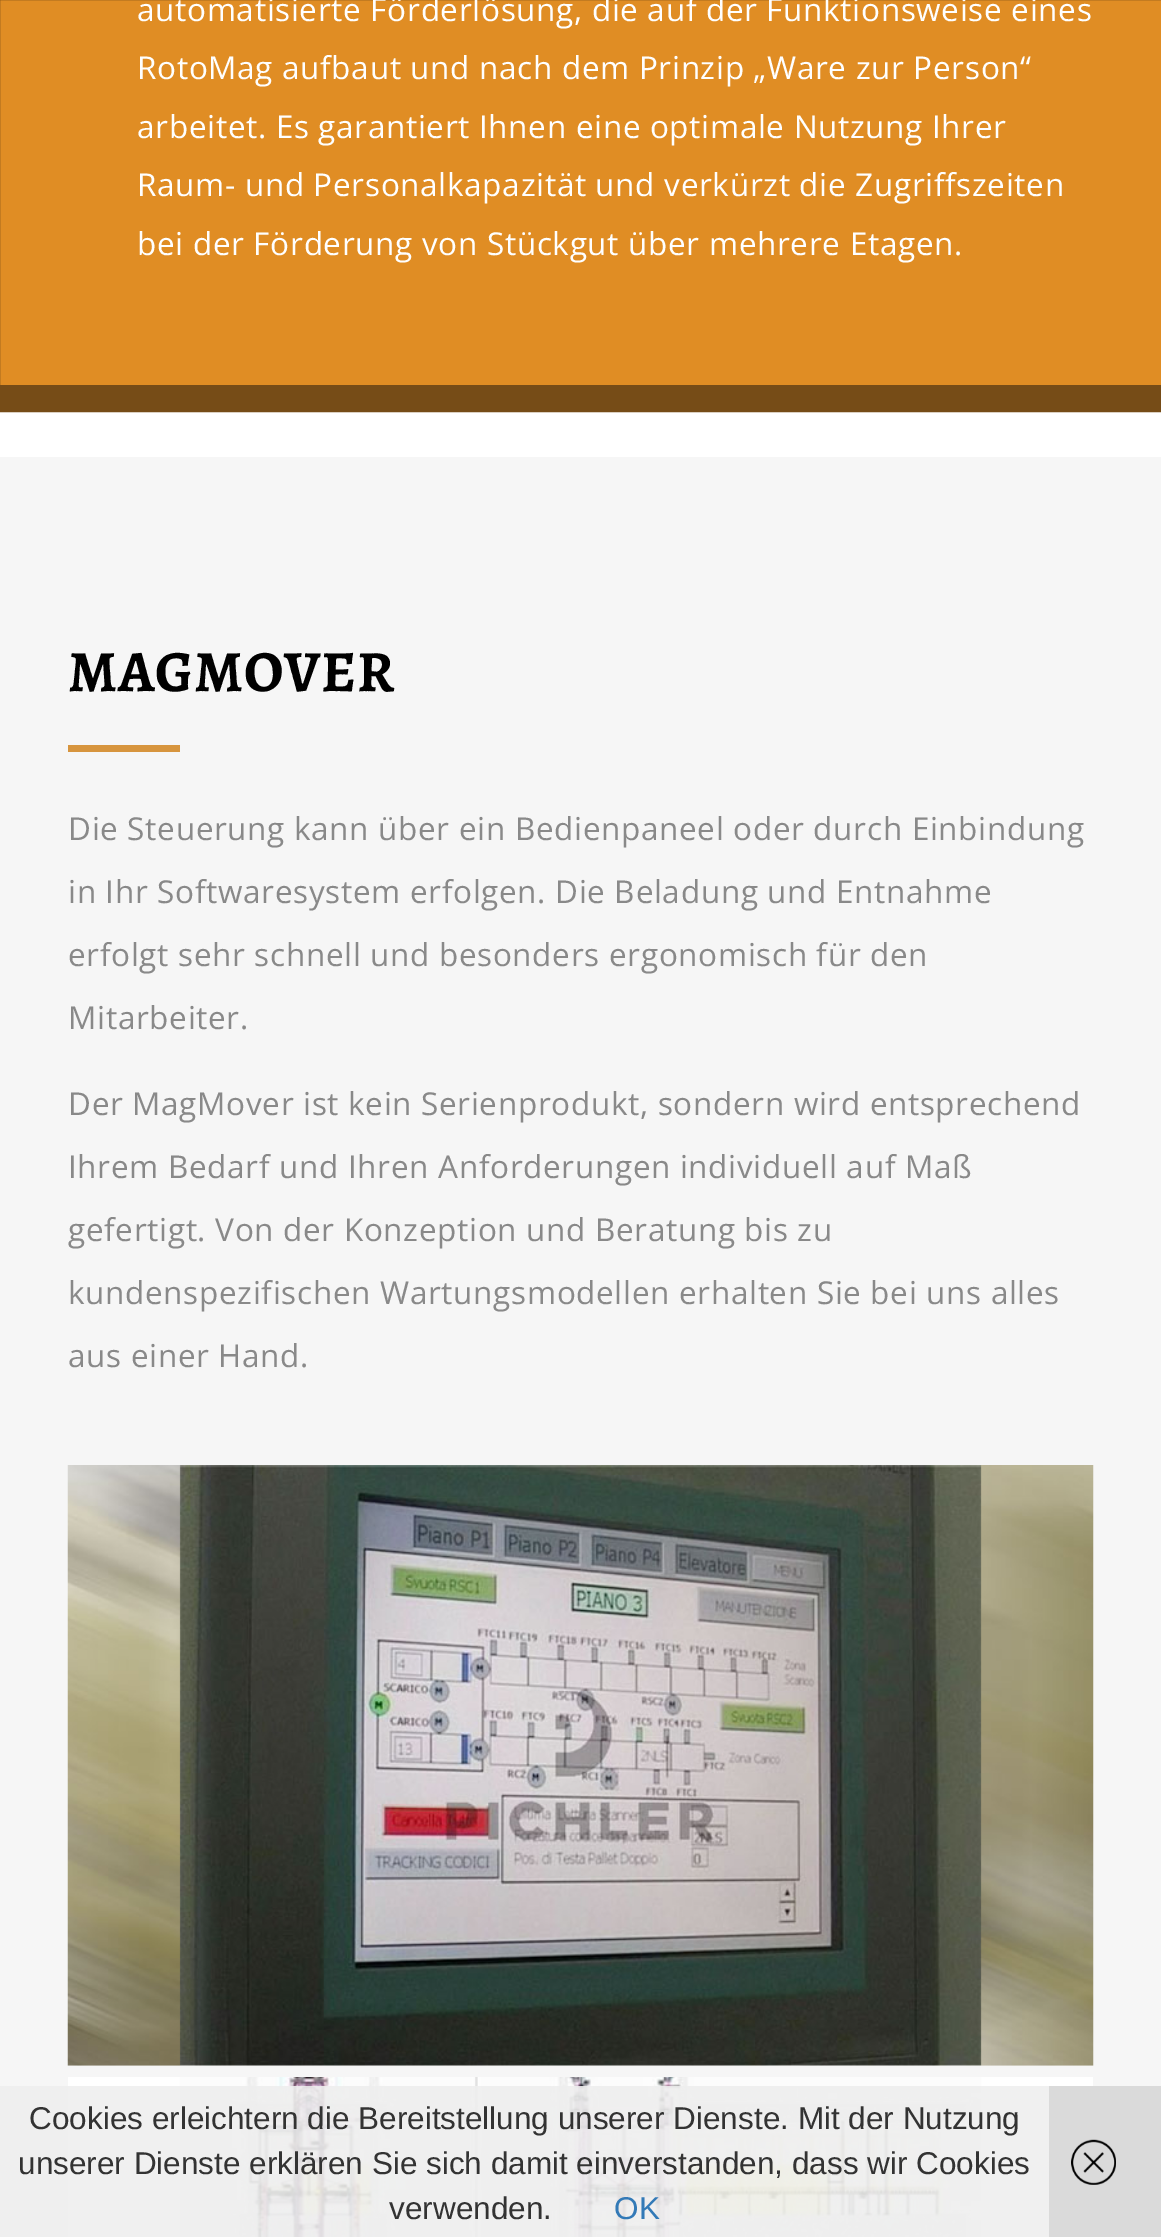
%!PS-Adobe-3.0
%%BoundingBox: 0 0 1161 2237
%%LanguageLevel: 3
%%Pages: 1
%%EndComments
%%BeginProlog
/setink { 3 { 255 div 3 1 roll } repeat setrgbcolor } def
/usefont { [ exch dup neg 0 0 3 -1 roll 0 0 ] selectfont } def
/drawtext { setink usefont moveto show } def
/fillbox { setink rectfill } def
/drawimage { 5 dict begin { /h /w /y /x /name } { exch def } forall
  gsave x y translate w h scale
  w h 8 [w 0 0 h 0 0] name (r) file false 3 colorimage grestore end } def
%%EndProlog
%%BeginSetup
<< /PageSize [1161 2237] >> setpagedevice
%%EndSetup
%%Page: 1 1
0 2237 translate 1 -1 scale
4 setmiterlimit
0 0 1161 2237 255 255 255 fillbox
224 141 36 setink
-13.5 -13.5 moveto 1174.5 -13.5 lineto 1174.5 398.5 lineto -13.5 398.5 lineto closepath gsave fill grestore
118 76 23 setink
27 setlinewidth
stroke
/OpenSans-Regular 31.5 usefont
255 255 255 setink
137 21 moveto 0.67 0 (automatisierte Förderlösung, die auf der Funktionsweise eines) ashow
137 79 moveto 0.67 0 (RotoMag aufbaut und nach dem Prinzip „Ware zur Person“) ashow
137 138 moveto 0.67 0 (arbeitet. Es garantiert Ihnen eine optimale Nutzung Ihrer) ashow
137 196 moveto 0.67 0 (Raum- und Personalkapazität und verkürzt die Zugriffszeiten) ashow
137 255 moveto 0.67 0 (bei der Förderung von Stückgut über mehrere Etagen.) ashow
0 457 1161 1629 246 246 246 fillbox
0 2086 68 151 239 239 239 fillbox
/Alegreya-Bold 58.5 usefont
0 0 0 setink
68 691 moveto 0.67 0 (MAGMOVER) ashow
68 745 112 7 215 149 62 fillbox
/OpenSans-Regular 31.5 usefont
137 137 137 setink
68 840 moveto 0.67 0 (Die Steuerung kann über ein Bedienpaneel oder durch Einbindung) ashow
68 903 moveto 0.67 0 (in Ihr Softwaresystem erfolgen. Die Beladung und Entnahme) ashow
68 966 moveto 0.67 0 (erfolgt sehr schnell und besonders ergonomisch für den) ashow
68 1029 moveto 0.67 0 (Mitarbeiter.) ashow
68 1115 moveto 0.67 0 (Der MagMover ist kein Serienprodukt, sondern wird entsprechend) ashow
68 1178 moveto 0.67 0 (Ihrem Bedarf und Ihren Anforderungen individuell auf Maß) ashow
68 1241 moveto 0.67 0 (gefertigt. Von der Konzeption und Beratung bis zu) ashow
68 1304 moveto 0.67 0 (kundenspezifischen Wartungsmodellen erhalten Sie bei uns alles) ashow
68 1367 moveto 0.67 0 (aus einer Hand.) ashow
(assets/img1.rgb) 67 1465 1027 601 drawimage
(assets/img2.rgb) 68 2077 1025 160 drawimage
(Cookies erleichtern die Bereitstellung unserer Dienste. Mit der Nutzung) 29 2129 /LiberationSans-Regular 31.5 51 51 51 drawtext
(unserer Dienste erklären Sie sich damit einverstanden, dass wir Cookies) 18 2174 /LiberationSans-Regular 31.5 51 51 51 drawtext
(verwenden.) 389 2219 /LiberationSans-Regular 31.5 51 51 51 drawtext
(OK) 614 2219 /LiberationSans-Regular 31.5 51 122 183 drawtext
1049 2086 112 151 218 218 218 fillbox
(assets/img3.rgb) 1071 2139 45 46 drawimage
showpage
%%EOF
